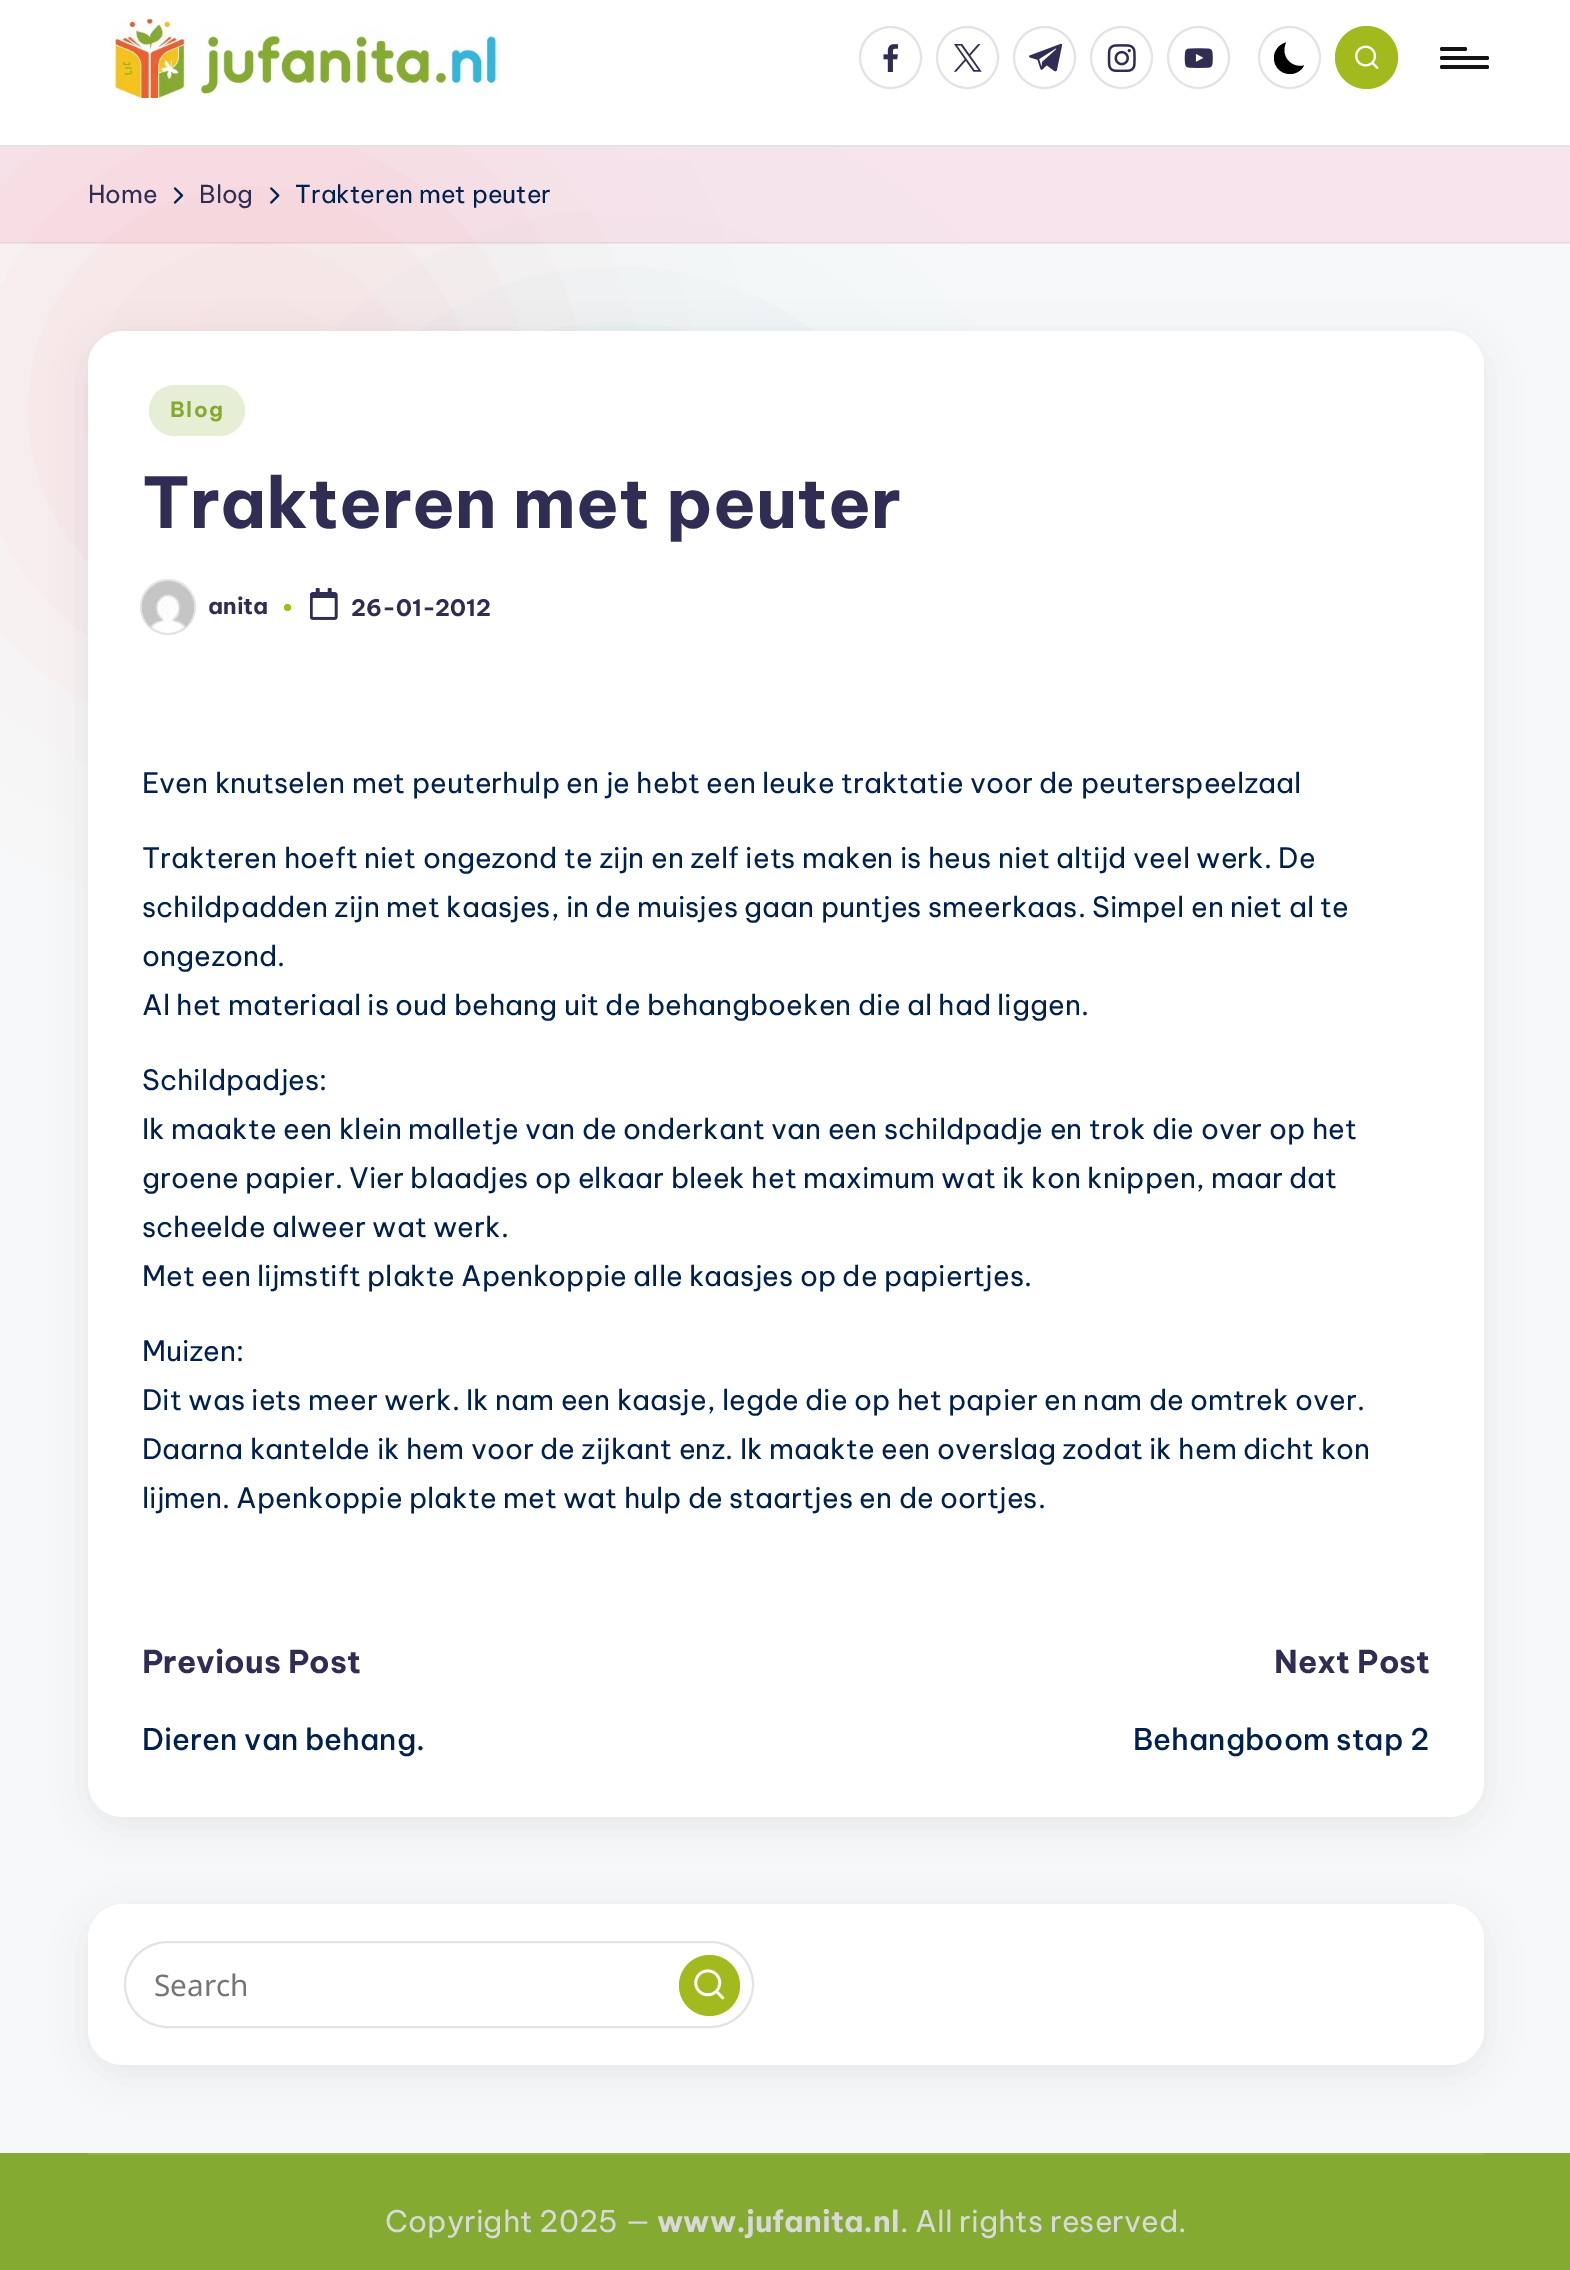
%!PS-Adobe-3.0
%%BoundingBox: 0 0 1570 2270
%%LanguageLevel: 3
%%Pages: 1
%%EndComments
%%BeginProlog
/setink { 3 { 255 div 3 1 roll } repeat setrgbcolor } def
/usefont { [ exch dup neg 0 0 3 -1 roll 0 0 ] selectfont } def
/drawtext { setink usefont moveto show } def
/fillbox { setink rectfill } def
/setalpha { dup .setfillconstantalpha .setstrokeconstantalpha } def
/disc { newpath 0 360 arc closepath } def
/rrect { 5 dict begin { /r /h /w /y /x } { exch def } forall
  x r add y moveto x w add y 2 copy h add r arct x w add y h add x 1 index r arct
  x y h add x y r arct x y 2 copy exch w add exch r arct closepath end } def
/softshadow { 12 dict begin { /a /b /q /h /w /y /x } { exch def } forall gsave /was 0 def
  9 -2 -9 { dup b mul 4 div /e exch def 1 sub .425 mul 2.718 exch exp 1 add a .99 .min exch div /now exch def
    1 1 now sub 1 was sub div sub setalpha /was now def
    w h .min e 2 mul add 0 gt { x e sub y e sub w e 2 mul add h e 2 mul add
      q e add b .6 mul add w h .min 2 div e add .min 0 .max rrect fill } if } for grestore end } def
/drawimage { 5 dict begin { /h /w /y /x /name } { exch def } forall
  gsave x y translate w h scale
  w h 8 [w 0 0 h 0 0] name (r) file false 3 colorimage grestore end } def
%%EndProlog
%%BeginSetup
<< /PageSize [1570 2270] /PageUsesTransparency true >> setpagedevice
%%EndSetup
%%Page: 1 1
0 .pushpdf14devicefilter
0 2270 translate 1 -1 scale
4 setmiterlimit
0 0 1570 2270 247 248 249 fillbox
247 227 229 setink
0 158 504 504 252 112 1 softshadow
4 134 139 setink
364 350 504 504 252 112 0.1 softshadow
0 0 1570 145 255 255 255 fillbox
0 145 1570 2 227 227 227 fillbox
(assets/img1.rgb) 110 19 391 79 drawimage
2 setlinewidth
890.5 57.5 30.5 disc stroke
(assets/img2.rgb) 883 44 16 28 drawimage
967.5 57.5 30.5 disc stroke
(assets/img3.rgb) 953 44 29 28 drawimage
1044.5 57.5 30.5 disc stroke
(assets/img4.rgb) 1029 44 34 28 drawimage
1121.5 57.5 30.5 disc stroke
(assets/img5.rgb) 1107 44 29 28 drawimage
1198.5 57.5 30.5 disc stroke
(assets/img6.rgb) 1184 48 29 20 drawimage
1289.5 57.5 30.5 disc stroke
0 0 0 setink
1304 65.5 moveto 1290.5 68.5 1280 55.5 1286 42.5 curveto 1279 44.5 1274 50.5 1274 58 curveto 1274 67 1281 74 1290 74 curveto 1296 74 1301.5 70.5 1304 65.5 curveto closepath fill
162 186 29 setink
1366.5 57.5 31.5 disc fill
(assets/img7.rgb) 1355 45 24 24 drawimage
19 19 21 setink
1440 56 49 4 2 rrect fill
1440 47 27 4 2 rrect fill
1440 65 49 4 2 rrect fill
0.1 setalpha
0 147 1570 96 244 54 118 fillbox
0.06 setalpha
0 242 1570 2 0 0 0 fillbox
1 setalpha
(Home) 88 203 /BeVietnamPro-Regular 24.5 48 45 85 drawtext
(assets/img8.rgb) 173 187 11 17 drawimage
(Blog) 199 203 /BeVietnamPro-Regular 24.5 48 45 85 drawtext
(assets/img9.rgb) 270 187 10 17 drawimage
(Trakteren met peuter) 295 203 /BeVietnamPro-Regular 24.5 0 32 80 drawtext
69 67 96 setink
88 340 1396 1485 35 17.5 0.1 softshadow
255 255 255 setink
88 331 1396 1486 35 rrect fill
231 238 214 setink
149 385 96 51 25.5 rrect fill
/BeVietnamPro-Bold 21 usefont
132 170 49 setink
170 417 moveto 1.5 0 (Blog) ashow
(Trakteren met peuter) 142 528 /BeVietnamPro-Bold 70 48 45 85 drawtext
(assets/img10.rgb) 141 581 53 47 drawimage
0.4 setalpha
185 185 185 setink
168 607 27 disc stroke
1 setalpha
(anita) 208 614 /BeVietnamPro-Bold 22.75 48 45 85 drawtext
162 186 29 setink
287.5 607.5 3.5 disc fill
(assets/img11.rgb) 310 588 28 32 drawimage
(26-01-2012) 351 616 /BeVietnamPro-Bold 22.75 48 45 85 drawtext
(Even knutselen met peuterhulp en je hebt een leuke traktatie voor de peuterspeelzaal) 142 793 /BeVietnamPro-Regular 28 0 32 80 drawtext
(Trakteren hoeft niet ongezond te zijn en zelf iets maken is heus niet altijd veel werk. De) 142 868 /BeVietnamPro-Regular 28 0 32 80 drawtext
(schildpadden zijn met kaasjes, in de muisjes gaan puntjes smeerkaas. Simpel en niet al te) 142 917 /BeVietnamPro-Regular 28 0 32 80 drawtext
(ongezond.) 142 966 /BeVietnamPro-Regular 28 0 32 80 drawtext
(Al het materiaal is oud behang uit de behangboeken die al had liggen.) 142 1015 /BeVietnamPro-Regular 28 0 32 80 drawtext
(Schildpadjes:) 142 1090 /BeVietnamPro-Regular 28 0 32 80 drawtext
(Ik maakte een klein malletje van de onderkant van een schildpadje en trok die over op het) 142 1139 /BeVietnamPro-Regular 28 0 32 80 drawtext
(groene papier. Vier blaadjes op elkaar bleek het maximum wat ik kon knippen, maar dat) 142 1188 /BeVietnamPro-Regular 28 0 32 80 drawtext
(scheelde alweer wat werk.) 142 1237 /BeVietnamPro-Regular 28 0 32 80 drawtext
(Met een lijmstift plakte Apenkoppie alle kaasjes op de papiertjes.) 142 1286 /BeVietnamPro-Regular 28 0 32 80 drawtext
(Muizen:) 142 1361 /BeVietnamPro-Regular 28 0 32 80 drawtext
(Dit was iets meer werk. Ik nam een kaasje, legde die op het papier en nam de omtrek over.) 142 1410 /BeVietnamPro-Regular 28 0 32 80 drawtext
(Daarna kantelde ik hem voor de zijkant enz. Ik maakte een overslag zodat ik hem dicht kon) 142 1459 /BeVietnamPro-Regular 28 0 32 80 drawtext
(lijmen. Apenkoppie plakte met wat hulp de staartjes en de oortjes.) 142 1508 /BeVietnamPro-Regular 28 0 32 80 drawtext
(Previous Post) 142 1673 /BeVietnamPro-Bold 31.5 48 45 85 drawtext
(Dieren van behang.) 142 1750 /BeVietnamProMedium-Medium 29.75 0 32 80 drawtext
(Next Post) 1274 1673 /BeVietnamPro-Bold 31.5 48 45 85 drawtext
(Behangboom stap 2) 1133 1750 /BeVietnamProMedium-Medium 29.75 0 32 80 drawtext
69 67 96 setink
88 1913 1396 161 35 17.5 0.1 softshadow
255 255 255 setink
88 1904 1396 161 35 rrect fill
227 227 227 setink
125 1942 628 85 42.5 rrect stroke
(Search) 154 1996 /NotoSans-Regular 29.75 117 117 117 drawtext
162 186 29 setink
709.5 1985.5 30.5 disc fill
(assets/img12.rgb) 694 1969 31 31 drawimage
0 2153 1570 117 132 170 49 fillbox
88 2153 1396 2 144 179 70 fillbox
(Copyright 2025 —) 385 2232 /BeVietnamPro-Regular 29.75 217 217 217 drawtext
(www.jufanita.nl) 657 2232 /BeVietnamPro-Bold 29.75 217 217 217 drawtext
(. All rights reserved.) 900 2232 /BeVietnamPro-Regular 29.75 217 217 217 drawtext
.poppdf14devicefilter showpage
%%EOF
